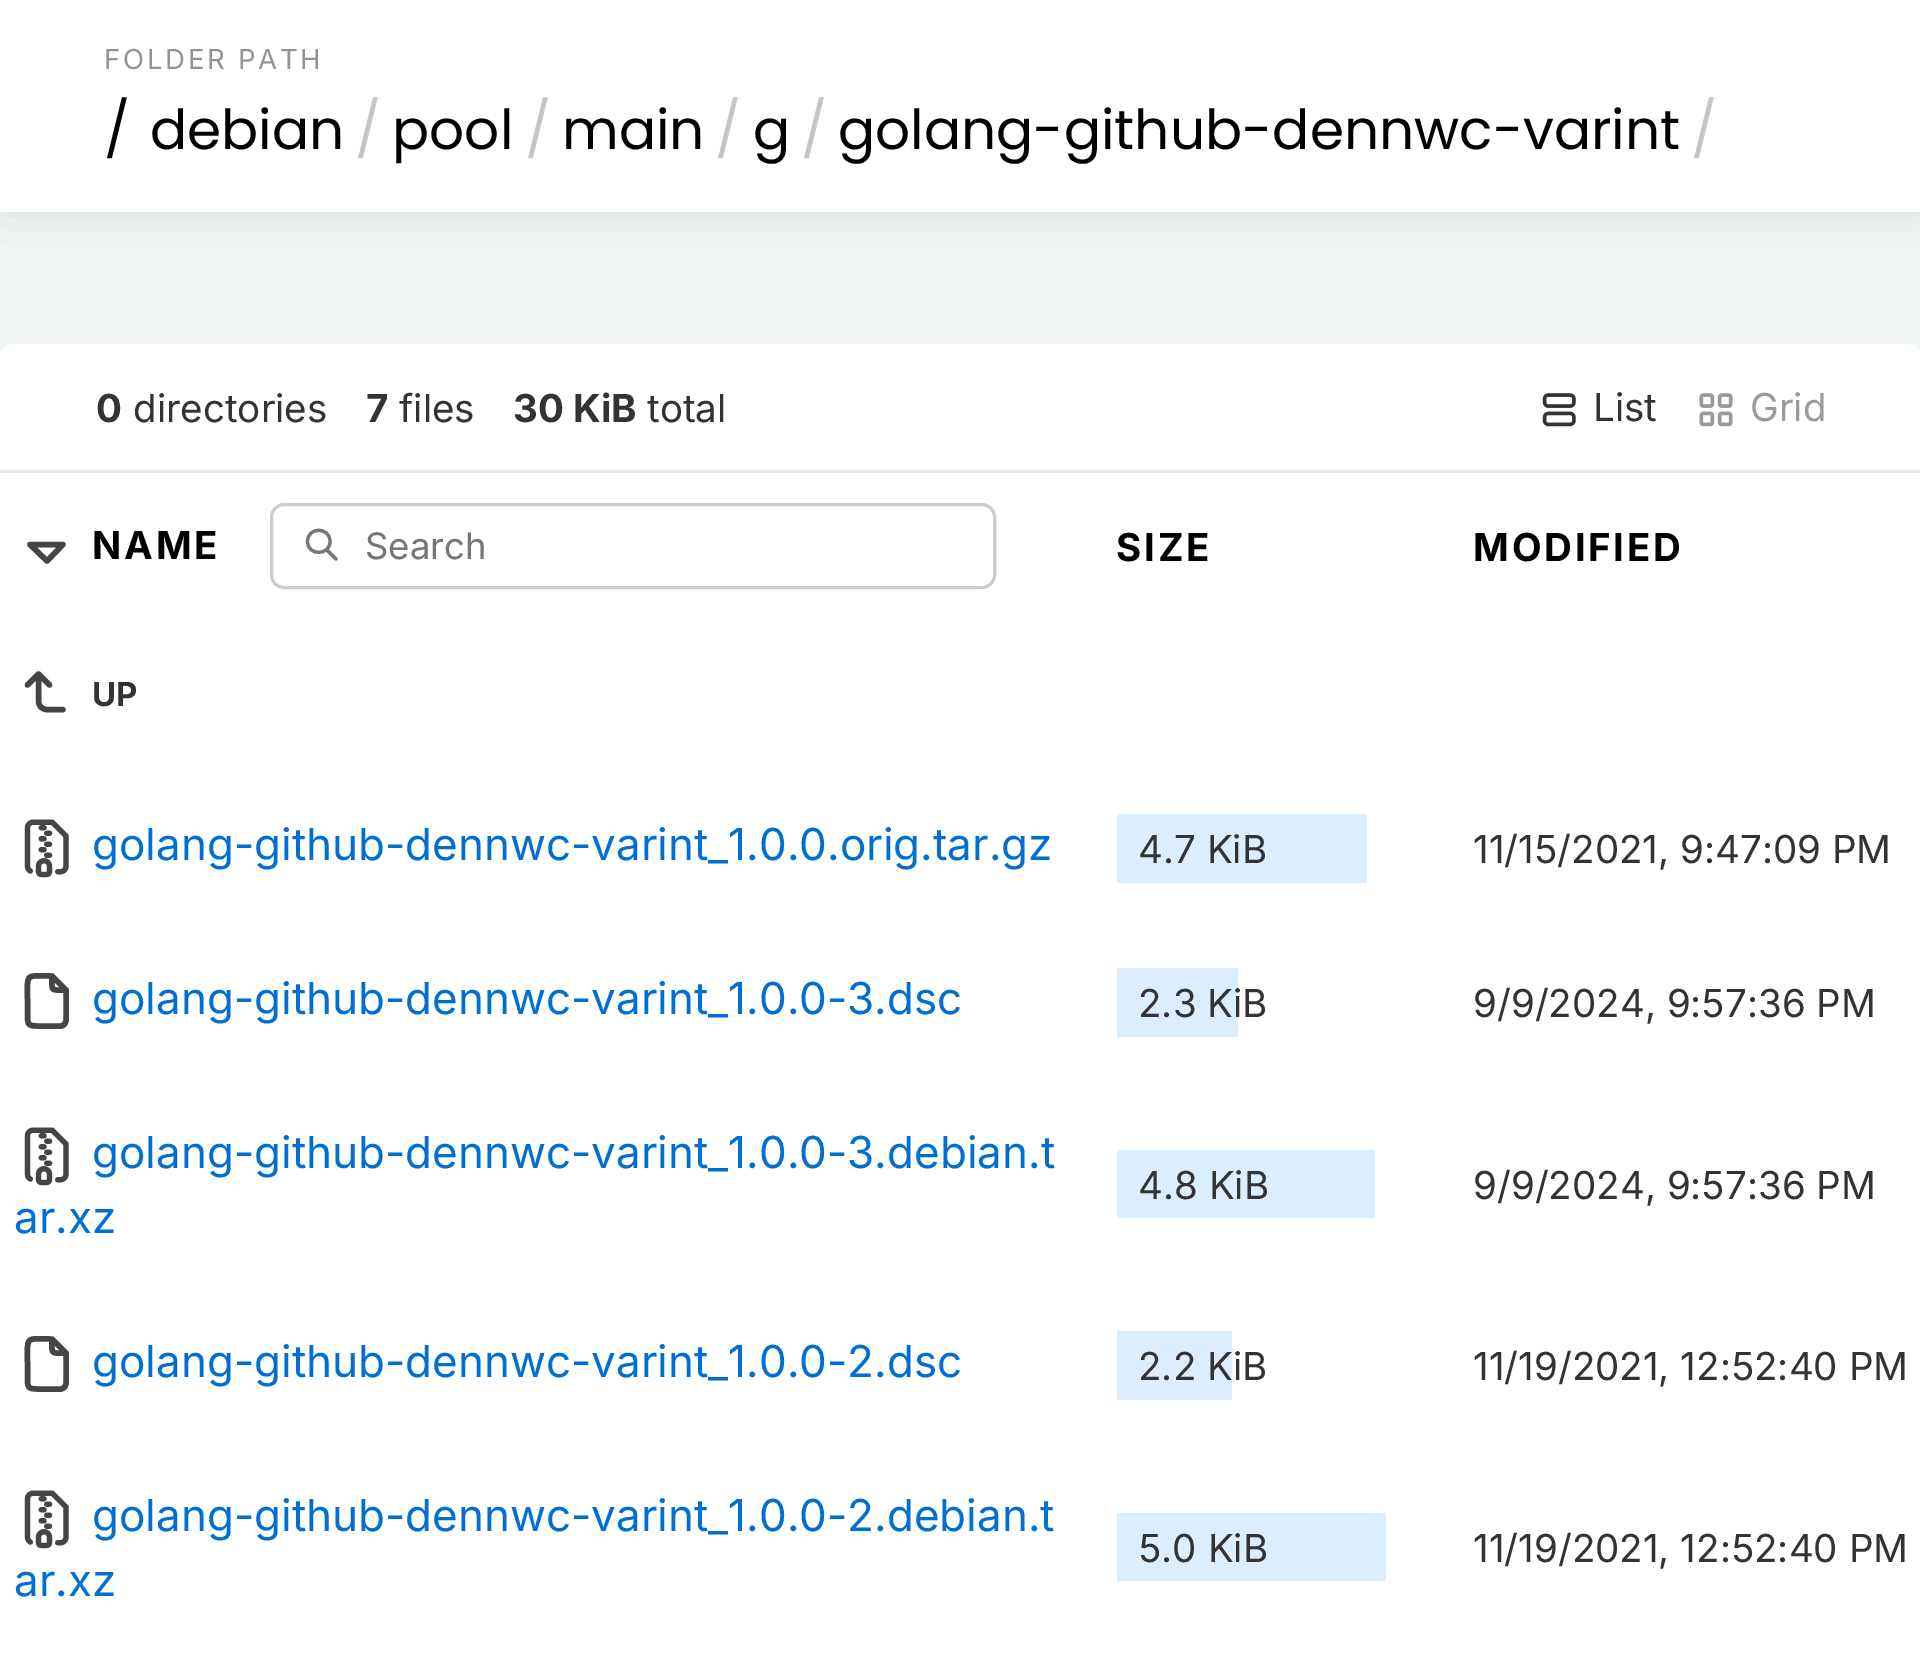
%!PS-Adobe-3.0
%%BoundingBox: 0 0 1920 1670
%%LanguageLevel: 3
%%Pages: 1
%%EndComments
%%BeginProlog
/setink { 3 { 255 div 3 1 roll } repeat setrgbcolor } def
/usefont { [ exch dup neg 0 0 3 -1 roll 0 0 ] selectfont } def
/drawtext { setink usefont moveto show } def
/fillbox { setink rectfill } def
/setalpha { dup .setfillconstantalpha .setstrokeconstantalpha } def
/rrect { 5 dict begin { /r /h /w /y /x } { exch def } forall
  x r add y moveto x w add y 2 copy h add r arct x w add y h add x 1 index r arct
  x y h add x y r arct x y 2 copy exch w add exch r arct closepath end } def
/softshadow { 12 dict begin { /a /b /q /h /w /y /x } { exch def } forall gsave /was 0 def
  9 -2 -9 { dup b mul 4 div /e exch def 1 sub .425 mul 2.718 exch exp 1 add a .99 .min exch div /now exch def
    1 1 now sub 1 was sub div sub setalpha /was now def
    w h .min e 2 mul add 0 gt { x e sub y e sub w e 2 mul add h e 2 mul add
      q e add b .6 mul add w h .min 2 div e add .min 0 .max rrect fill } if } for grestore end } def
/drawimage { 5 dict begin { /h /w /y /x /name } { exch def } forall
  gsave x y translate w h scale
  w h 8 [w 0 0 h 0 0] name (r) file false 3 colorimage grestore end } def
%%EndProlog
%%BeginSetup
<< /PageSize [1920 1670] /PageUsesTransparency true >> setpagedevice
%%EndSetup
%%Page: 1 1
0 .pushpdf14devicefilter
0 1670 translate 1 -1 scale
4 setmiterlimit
0 0 1920 1670 243 246 247 fillbox
0 0 0 setink
0 0 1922 212 0 27.5 0.1 softshadow
0 0 1920 212 255 255 255 fillbox
/Inter-Regular 27.5 usefont
147 147 147 setink
104 69 moveto 2.75 0 (FOLDER PATH) ashow
(/) 104 149 /Poppins-Regular 55 0 0 0 drawtext
(debian) 150 149 /Poppins-Regular 55 0 0 0 drawtext
(/) 355 149 /Poppins-Regular 55 197 197 197 drawtext
(pool) 392 149 /Poppins-Regular 55 0 0 0 drawtext
(/) 525 149 /Poppins-Regular 55 197 197 197 drawtext
(main) 562 149 /Poppins-Regular 55 0 0 0 drawtext
(/) 715 149 /Poppins-Regular 55 197 197 197 drawtext
(g) 753 149 /Poppins-Regular 55 0 0 0 drawtext
(/) 801 149 /Poppins-Regular 55 197 197 197 drawtext
(golang-github-dennwc-varint) 838 149 /Poppins-Regular 55 0 0 0 drawtext
(/) 1691 149 /Poppins-Regular 55 197 197 197 drawtext
255 255 255 setink
0 344 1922 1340 14 rrect fill
0 470 1920 3 229 233 234 fillbox
(0) 96 422 /Inter-Bold 38.5 51 51 51 drawtext
(directories) 133 422 /Inter-Regular 38.5 51 51 51 drawtext
(7) 366 422 /Inter-Bold 38.5 51 51 51 drawtext
(files) 399 422 /Inter-Regular 38.5 51 51 51 drawtext
(30 KiB) 513 422 /Inter-Bold 38.5 51 51 51 drawtext
(total) 647 422 /Inter-Regular 38.5 51 51 51 drawtext
(assets/img1.rgb) 1542 393 34 34 drawimage
(List) 1593 421 /Inter-Regular 38.5 51 51 51 drawtext
(assets/img2.rgb) 1699 393 34 34 drawimage
(Grid) 1750 421 /Inter-Regular 38.5 154 154 154 drawtext
69 69 69 setink
5.5 setlinewidth
1 setlinecap
1 setlinejoin
30 544.5 moveto 47 561 lineto 63 544.5 lineto 30 544.5 lineto stroke
/Inter-Bold 38.5 usefont
0 0 0 setink
92 559 moveto 2.75 0 (NAME) ashow
119 119 119 setink
3.2 setlinewidth
307.5 541.5 moveto 307.5 556 330 556 330 541.5 curveto 330 526.5 307.5 526.5 307.5 541.5 curveto 336 559 moveto 326.5 549.5 lineto stroke
204 204 204 setink
3 setlinewidth
0 setlinecap
0 setlinejoin
271.5 504.5 723 83 12.5 rrect stroke
(Search) 365 559 /Inter-Regular 36.5 117 117 117 drawtext
/Inter-Bold 38.5 usefont
0 0 0 setink
1116 561 moveto 2.75 0 (SIZE) ashow
1473 561 moveto 2.75 0 (MODIFIED) ashow
69 69 69 setink
5.5 setlinewidth
1 setlinecap
1 setlinejoin
63 709.5 moveto 47 709.5 lineto 42 709.5 38.5 706 38.5 701 curveto 38.5 674 lineto 27.5 685 lineto 49.5 685 moveto 38.5 674 lineto stroke
(UP) 92 706 /Inter-Bold 33 51 51 51 drawtext
(assets/img3.rgb) 24 819 45 59 drawimage
(golang-github-dennwc-varint_1.0.0.orig.tar.gz) 92 860 /Inter-Regular 44 0 110 211 drawtext
1117 814 250 69 219 238 255 fillbox
(4.7 KiB) 1138 863 /Inter-Regular 38.5 51 51 51 drawtext
(11/15/2021, 9:47:09 PM) 1473 863 /Inter-Regular 38.5 51 51 51 drawtext
69 69 69 setink
52 976 moveto 52 992 50 990 66 990 curveto 60.5 1026 moveto 37.5 1026 lineto 27.5 1026 27.5 1024 27.5 1014 curveto 27.5 1001 lineto 27.5 971.5 24.5 976 52 976 curveto 66 990 lineto 66 1020 lineto 66 1023.5 63.5 1026 60.5 1026 curveto closepath stroke
(golang-github-dennwc-varint_1.0.0-3.dsc) 92 1014 /Inter-Regular 44 0 110 211 drawtext
1117 968 121 69 219 238 255 fillbox
(2.3 KiB) 1138 1017 /Inter-Regular 38.5 51 51 51 drawtext
(9/9/2024, 9:57:36 PM) 1473 1017 /Inter-Regular 38.5 51 51 51 drawtext
(assets/img3.rgb) 24 1127 45 59 drawimage
(golang-github-dennwc-varint_1.0.0-3.debian.t) 92 1168 /Inter-Regular 44 0 110 211 drawtext
(ar.xz) 14 1233 /Inter-Regular 44 0 110 211 drawtext
1117 1150 258 68 219 238 255 fillbox
(4.8 KiB) 1138 1199 /Inter-Regular 38.5 51 51 51 drawtext
(9/9/2024, 9:57:36 PM) 1473 1199 /Inter-Regular 38.5 51 51 51 drawtext
69 69 69 setink
52 1339 moveto 52 1355 50 1353 66 1353 curveto 60.5 1389 moveto 37.5 1389 lineto 27.5 1389 27.5 1387 27.5 1377 curveto 27.5 1364 lineto 27.5 1334.5 24.5 1339 52 1339 curveto 66 1353 lineto 66 1383 lineto 66 1386.5 63.5 1389 60.5 1389 curveto closepath stroke
(golang-github-dennwc-varint_1.0.0-2.dsc) 92 1377 /Inter-Regular 44 0 110 211 drawtext
1117 1331 115 69 219 238 255 fillbox
(2.2 KiB) 1138 1380 /Inter-Regular 38.5 51 51 51 drawtext
(11/19/2021, 12:52:40 PM) 1473 1380 /Inter-Regular 38.5 51 51 51 drawtext
(assets/img3.rgb) 24 1490 45 59 drawimage
(golang-github-dennwc-varint_1.0.0-2.debian.t) 92 1531 /Inter-Regular 44 0 110 211 drawtext
(ar.xz) 14 1596 /Inter-Regular 44 0 110 211 drawtext
1117 1513 269 68 219 238 255 fillbox
(5.0 KiB) 1138 1562 /Inter-Regular 38.5 51 51 51 drawtext
(11/19/2021, 12:52:40 PM) 1473 1562 /Inter-Regular 38.5 51 51 51 drawtext
.poppdf14devicefilter showpage
%%EOF
